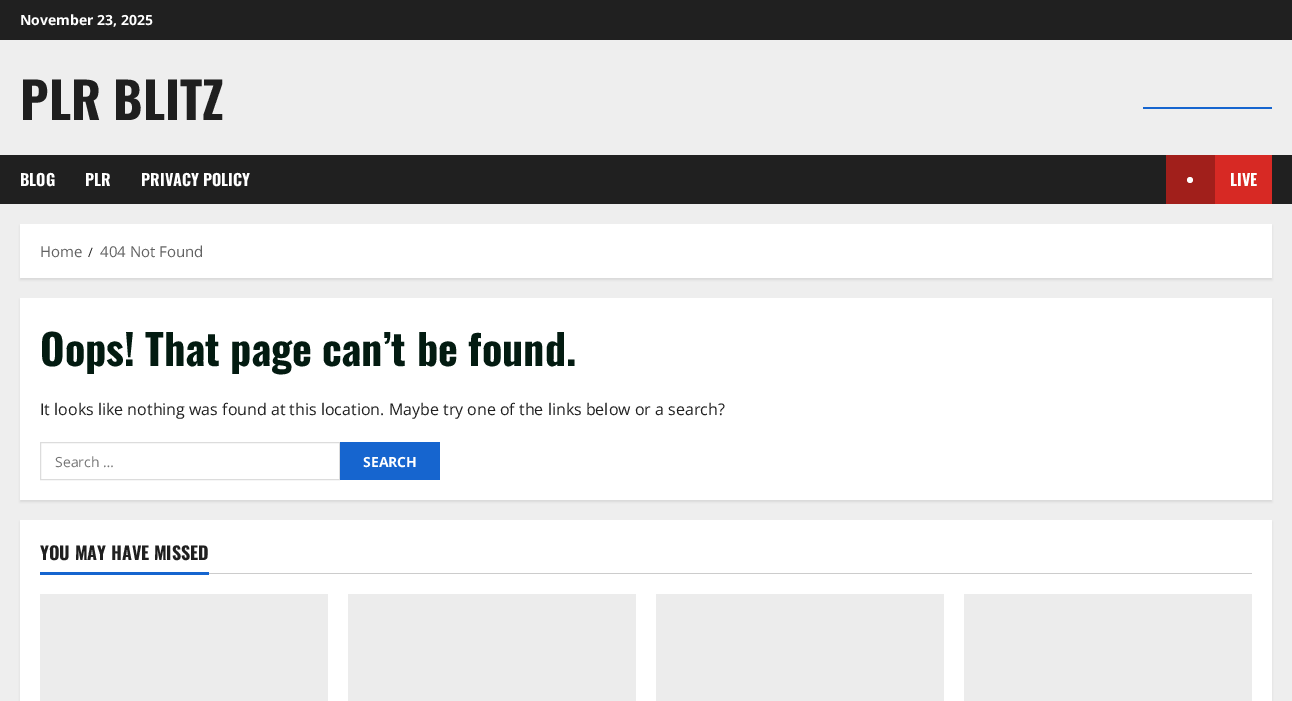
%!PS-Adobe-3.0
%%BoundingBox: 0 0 1292 701
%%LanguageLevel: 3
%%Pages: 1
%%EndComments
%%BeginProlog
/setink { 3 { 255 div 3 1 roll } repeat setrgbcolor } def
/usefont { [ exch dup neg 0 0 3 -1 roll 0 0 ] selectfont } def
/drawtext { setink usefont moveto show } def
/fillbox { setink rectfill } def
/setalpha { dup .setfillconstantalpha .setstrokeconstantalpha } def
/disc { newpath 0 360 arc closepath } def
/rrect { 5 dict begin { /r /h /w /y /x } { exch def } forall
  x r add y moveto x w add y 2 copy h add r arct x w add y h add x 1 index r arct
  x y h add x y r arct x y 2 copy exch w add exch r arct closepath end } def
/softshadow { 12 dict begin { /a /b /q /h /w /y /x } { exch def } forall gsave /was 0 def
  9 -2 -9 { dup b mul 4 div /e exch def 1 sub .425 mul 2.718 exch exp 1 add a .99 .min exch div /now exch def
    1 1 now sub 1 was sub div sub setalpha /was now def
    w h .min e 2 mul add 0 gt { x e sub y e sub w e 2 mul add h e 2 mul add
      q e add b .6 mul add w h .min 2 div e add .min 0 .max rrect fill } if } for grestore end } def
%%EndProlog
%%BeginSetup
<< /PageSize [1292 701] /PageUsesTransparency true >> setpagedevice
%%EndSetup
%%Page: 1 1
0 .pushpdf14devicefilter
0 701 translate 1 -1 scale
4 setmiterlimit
0 0 1292 701 238 238 238 fillbox
0 0 1292 40 32 32 32 fillbox
(November 23, 2025) 20 25 /OpenSans-Bold 14 255 255 255 drawtext
(PLR BLITZ) 20 120 /Oswald-Bold 50 31 31 31 drawtext
1143 107 129 2 22 101 207 fillbox
0 155 1292 49 32 32 32 fillbox
(BLOG) 20 186 /Oswald-Bold 16 255 255 255 drawtext
(PLR) 85 186 /Oswald-Bold 16 255 255 255 drawtext
(PRIVACY POLICY) 141 186 /Oswald-Bold 16 255 255 255 drawtext
1215 155 57 49 215 41 36 fillbox
1166 155 49 49 161 31 27 fillbox
255 255 255 setink
1190 180 3 disc fill
(LIVE) 1230 186 /Oswald-Bold 16 255 255 255 drawtext
0 0 0 setink
20 226 1252 54 0 1 0.08 softshadow
20 224 1252 54 255 255 255 fillbox
(Home) 40 257 /OpenSans-Regular 15 98 98 98 drawtext
(/) 88 257 /OpenSans-Regular 13 31 31 31 drawtext
(404 Not Found) 100 257 /OpenSans-Regular 15 98 98 98 drawtext
0 0 0 setink
20 300 1252 202 0 1 0.08 softshadow
20 298 1252 202 255 255 255 fillbox
(Oops! That page can’t be found.) 40 366 /Oswald-Bold 42 3 27 17 drawtext
(It looks like nothing was found at this location. Maybe try one of the links below or a search?) 40 415 /OpenSans-Regular 16 31 31 31 drawtext
220 220 220 setink
40.5 442.5 299 37 rectstroke
(Search …) 55 467 /OpenSans-Regular 14 117 117 117 drawtext
340 442 100 38 22 101 207 fillbox
(SEARCH) 363 467 /OpenSans-Bold 14 255 255 255 drawtext
0 0 0 setink
20 522 1252 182 0 1 0.08 softshadow
20 520 1252 181 255 255 255 fillbox
209 573 1043 1 204 204 204 fillbox
(YOU MAY HAVE MISSED) 40 560 /Oswald-Bold 18 31 31 31 drawtext
40 572 169 3 22 101 207 fillbox
40 594 288 107 236 236 236 fillbox
348 594 288 107 236 236 236 fillbox
656 594 288 107 236 236 236 fillbox
964 594 288 107 236 236 236 fillbox
.poppdf14devicefilter showpage
%%EOF
